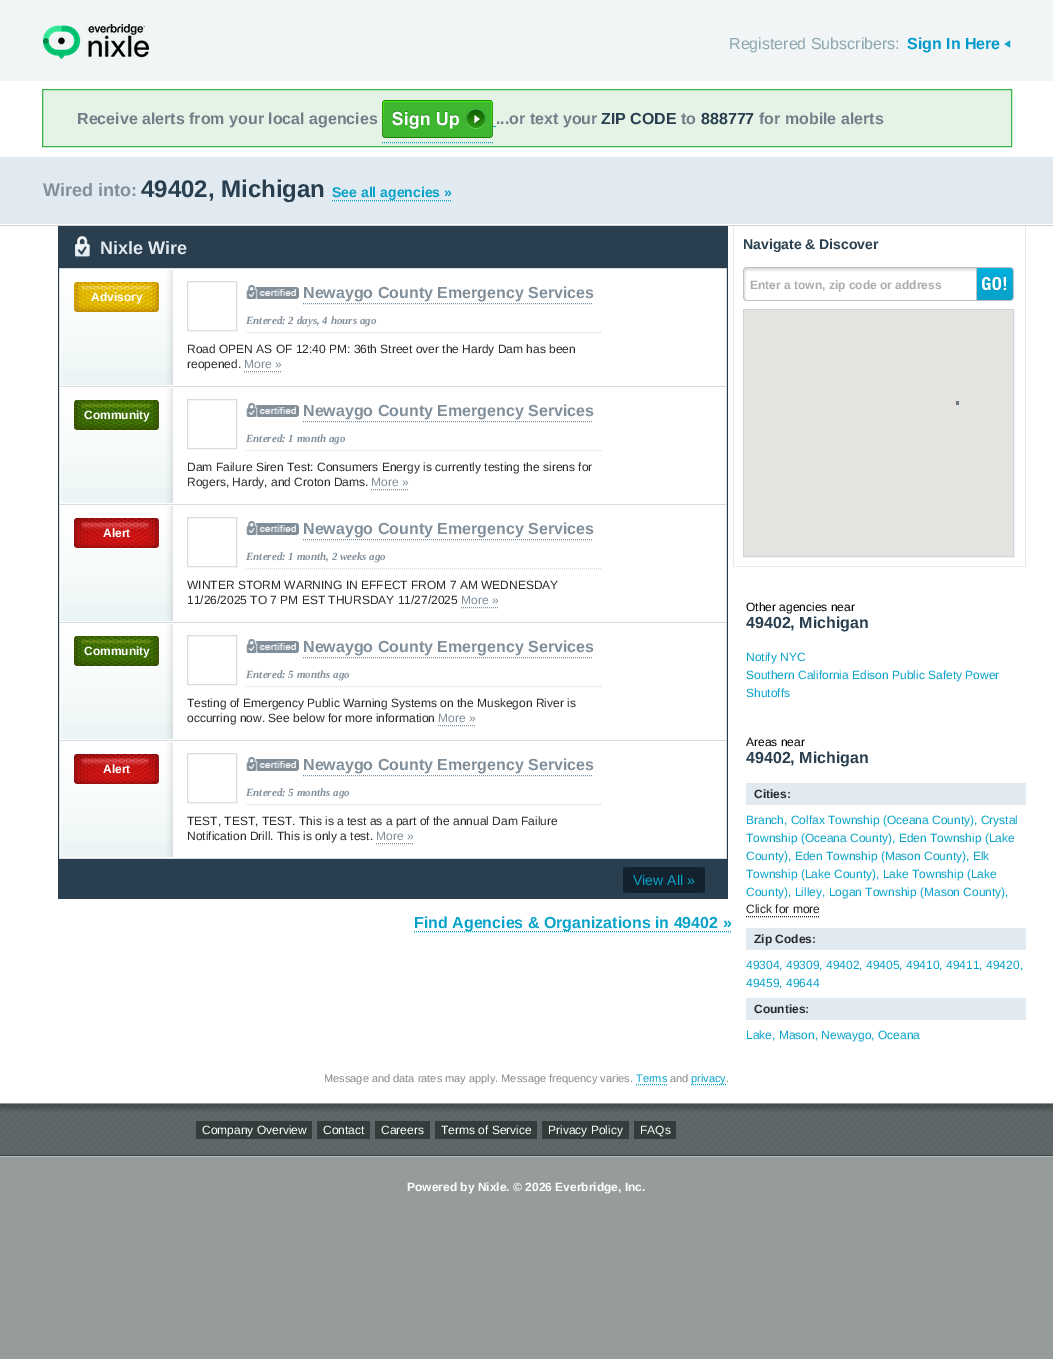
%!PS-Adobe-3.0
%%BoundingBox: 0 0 1053 1359
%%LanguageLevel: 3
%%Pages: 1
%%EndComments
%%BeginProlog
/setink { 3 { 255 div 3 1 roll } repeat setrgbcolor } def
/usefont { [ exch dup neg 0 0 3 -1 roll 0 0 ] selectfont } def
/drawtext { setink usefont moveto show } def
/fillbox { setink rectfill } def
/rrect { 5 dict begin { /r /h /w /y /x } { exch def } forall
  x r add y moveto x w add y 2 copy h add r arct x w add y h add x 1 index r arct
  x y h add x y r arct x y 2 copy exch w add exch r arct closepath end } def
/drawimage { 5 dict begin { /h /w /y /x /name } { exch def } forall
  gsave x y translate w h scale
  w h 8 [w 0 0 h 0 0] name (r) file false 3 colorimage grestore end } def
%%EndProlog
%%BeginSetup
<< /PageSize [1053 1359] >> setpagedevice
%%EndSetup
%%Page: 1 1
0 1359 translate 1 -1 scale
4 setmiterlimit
0 0 1053 1359 150 156 156 fillbox
0 0 1053 81 241 245 245 fillbox
(assets/img1.rgb) 43 24 106 35 drawimage
(Registered Subscribers:) 729 49 /LiberationSans-Regular 16 139 167 176 drawtext
(assets/img2.rgb) 1004 40 7 8 drawimage
(Sign In Here) 907 49 /LiberationSans-Bold 16 0 153 204 drawtext
0 81 1053 76 255 255 255 fillbox
229 242 230 setink
42.5 89.5 moveto 1011.5 89.5 lineto 1011.5 146.5 lineto 42.5 146.5 lineto closepath gsave fill grestore
57 181 74 setink
stroke
(Receive alerts from your local agencies) 77 124 /LiberationSans-Bold 16 113 126 136 drawtext
7 162 202 setink
[1 1] 0 setdash
382 142.5 moveto 493 142.5 lineto stroke
493 126 3 1 7 162 202 fillbox
(assets/img3.rgb) 382 100 111 38 drawimage
(...or text your) 496 124 /LiberationSans-Bold 16 113 126 136 drawtext
(ZIP CODE) 601 124 /LiberationSans-Bold 16 41 63 79 drawtext
(to) 681 124 /LiberationSans-Bold 16 113 126 136 drawtext
(888777) 701 124 /LiberationSans-Bold 16 41 63 79 drawtext
(for mobile alerts) 759 124 /LiberationSans-Bold 16 113 126 136 drawtext
0 157 1053 67 224 234 240 fillbox
0 224 1053 1 255 255 255 fillbox
(Wired into:) 43 196 /LiberationSans-Bold 18 129 143 155 drawtext
(49402, Michigan) 141 197 /LiberationSans-Bold 24 41 63 79 drawtext
(See all agencies ») 332 197 /LiberationSans-Bold 14 7 162 202 drawtext
332 200.5 moveto 452 200.5 lineto stroke
0 226 1053 877 255 255 255 fillbox
0 225 1053 1 205 212 217 fillbox
727 226 1 673 41 62 79 fillbox
58 898 670 1 41 62 79 fillbox
58 226 1 673 41 62 79 fillbox
59 226 668 42 41 62 79 fillbox
59 268 668 1 215 220 224 fillbox
(assets/img4.rgb) 75 236 15 21 drawimage
(Nixle Wire) 100 254 /LiberationSans-Bold 18 225 234 241 drawtext
726 269 1 590 215 220 224 fillbox
59 269 1 590 215 220 224 fillbox
(assets/img5.rgb) 61 370 112 15 drawimage
60 386 666 1 215 220 224 fillbox
(assets/img6.rgb) 61 270 112 100 drawimage
(assets/img7.rgb) 74 282 85 30 drawimage
(Advisory) 91 301 /LiberationSans-Bold 12 255 255 255 drawtext
215 220 224 setink
[] 0 setdash
187.5 281.5 49 49 rectstroke
(assets/img8.rgb) 246 285 53 14 drawimage
(Newaygo County Emergency Services) 303 298 /LiberationSans-Bold 16 129 143 155 drawtext
[1 1] 0 setdash
303 303.5 moveto 592 303.5 lineto stroke
215 220 224 setink
246 332.5 moveto 602 332.5 lineto stroke
(Entered: 2 days, 4 hours ago) 246 324 /LiberationSerif-BoldItalic 11 129 143 155 drawtext
(Road OPEN AS OF 12:40 PM: 36th Street over the Hardy Dam has been) 187 353 /LiberationSans-Regular 12 41 43 47 drawtext
(reopened.) 187 368 /LiberationSans-Regular 12 41 43 47 drawtext
(More ») 244 368 /LiberationSans-Regular 12 129 143 155 drawtext
244 371.5 moveto 281 371.5 lineto stroke
(assets/img5.rgb) 61 488 112 15 drawimage
60 504 666 1 215 220 224 fillbox
(assets/img6.rgb) 61 388 112 100 drawimage
(assets/img9.rgb) 74 400 85 30 drawimage
(Community) 84 419 /LiberationSans-Bold 12 255 255 255 drawtext
215 220 224 setink
[] 0 setdash
187.5 399.5 49 49 rectstroke
(assets/img8.rgb) 246 403 53 14 drawimage
(Newaygo County Emergency Services) 303 416 /LiberationSans-Bold 16 129 143 155 drawtext
[1 1] 0 setdash
303 421.5 moveto 592 421.5 lineto stroke
215 220 224 setink
246 450.5 moveto 602 450.5 lineto stroke
(Entered: 1 month ago) 246 442 /LiberationSerif-BoldItalic 11 129 143 155 drawtext
(Dam Failure Siren Test: Consumers Energy is currently testing the sirens for) 187 471 /LiberationSans-Regular 12 41 43 47 drawtext
(Rogers, Hardy, and Croton Dams.) 187 486 /LiberationSans-Regular 12 41 43 47 drawtext
(More ») 371 486 /LiberationSans-Regular 12 129 143 155 drawtext
371 489.5 moveto 409 489.5 lineto stroke
(assets/img5.rgb) 61 606 112 15 drawimage
60 622 666 1 215 220 224 fillbox
(assets/img6.rgb) 61 506 112 100 drawimage
(assets/img10.rgb) 74 518 85 30 drawimage
(Alert) 103 537 /LiberationSans-Bold 12 255 255 255 drawtext
215 220 224 setink
[] 0 setdash
187.5 517.5 49 49 rectstroke
(assets/img8.rgb) 246 521 53 14 drawimage
(Newaygo County Emergency Services) 303 534 /LiberationSans-Bold 16 129 143 155 drawtext
[1 1] 0 setdash
303 539.5 moveto 592 539.5 lineto stroke
215 220 224 setink
246 568.5 moveto 602 568.5 lineto stroke
(Entered: 1 month, 2 weeks ago) 246 560 /LiberationSerif-BoldItalic 11 129 143 155 drawtext
(WINTER STORM WARNING IN EFFECT FROM 7 AM WEDNESDAY) 187 589 /LiberationSans-Regular 12 41 43 47 drawtext
(11/26/2025 TO 7 PM EST THURSDAY 11/27/2025) 187 604 /LiberationSans-Regular 12 41 43 47 drawtext
(More ») 461 604 /LiberationSans-Regular 12 129 143 155 drawtext
461 607.5 moveto 498 607.5 lineto stroke
(assets/img5.rgb) 61 724 112 15 drawimage
60 740 666 1 215 220 224 fillbox
(assets/img6.rgb) 61 624 112 100 drawimage
(assets/img9.rgb) 74 636 85 30 drawimage
(Community) 84 655 /LiberationSans-Bold 12 255 255 255 drawtext
215 220 224 setink
[] 0 setdash
187.5 635.5 49 49 rectstroke
(assets/img8.rgb) 246 639 53 14 drawimage
(Newaygo County Emergency Services) 303 652 /LiberationSans-Bold 16 129 143 155 drawtext
[1 1] 0 setdash
303 657.5 moveto 592 657.5 lineto stroke
215 220 224 setink
246 686.5 moveto 602 686.5 lineto stroke
(Entered: 5 months ago) 246 678 /LiberationSerif-BoldItalic 11 129 143 155 drawtext
(Testing of Emergency Public Warning Systems on the Muskegon River is) 187 707 /LiberationSans-Regular 12 41 43 47 drawtext
(occurring now. See below for more information) 187 722 /LiberationSans-Regular 12 41 43 47 drawtext
(More ») 438 722 /LiberationSans-Regular 12 129 143 155 drawtext
438 725.5 moveto 475 725.5 lineto stroke
(assets/img5.rgb) 61 842 112 15 drawimage
60 858 666 1 215 220 224 fillbox
(assets/img6.rgb) 61 742 112 100 drawimage
(assets/img10.rgb) 74 754 85 30 drawimage
(Alert) 103 773 /LiberationSans-Bold 12 255 255 255 drawtext
215 220 224 setink
[] 0 setdash
187.5 753.5 49 49 rectstroke
(assets/img8.rgb) 246 757 53 14 drawimage
(Newaygo County Emergency Services) 303 770 /LiberationSans-Bold 16 129 143 155 drawtext
[1 1] 0 setdash
303 775.5 moveto 592 775.5 lineto stroke
215 220 224 setink
246 804.5 moveto 602 804.5 lineto stroke
(Entered: 5 months ago) 246 796 /LiberationSerif-BoldItalic 11 129 143 155 drawtext
(TEST, TEST, TEST. This is a test as a part of the annual Dam Failure) 187 825 /LiberationSans-Regular 12 41 43 47 drawtext
(Notification Drill. This is only a test.) 187 840 /LiberationSans-Regular 12 41 43 47 drawtext
(More ») 376 840 /LiberationSans-Regular 12 129 143 155 drawtext
376 843.5 moveto 413 843.5 lineto stroke
59 859 668 39 41 62 79 fillbox
18 34 47 setink
623 867 82 26 3 rrect fill
(View All ») 633 885 /LiberationSans-Regular 14 7 162 202 drawtext
414 931.5 moveto 732 931.5 lineto stroke
(Find Agencies & Organizations in 49402 ») 414 928 /LiberationSans-Bold 16 7 162 202 drawtext
1025 226 1 341 224 234 240 fillbox
733 566 293 1 224 234 240 fillbox
733 226 1 341 224 234 240 fillbox
(Navigate & Discover) 743 249 /LiberationSans-Bold 14 41 63 79 drawtext
(assets/img11.rgb) 743 267 233 34 drawimage
(Enter a town, zip code or address) 750 289 /LiberationSans-Bold 12 172 172 172 drawtext
(assets/img12.rgb) 976 267 38 34 drawimage
207 212 216 setink
[] 0 setdash
743.5 309.5 270 247 rectstroke
744 310 269 246 229 227 223 fillbox
956 401 3 4 105 120 131 fillbox
(Other agencies near) 746 611 /LiberationSans-Regular 12 0 0 0 drawtext
(49402, Michigan) 746 628 /LiberationSans-Bold 16 41 63 79 drawtext
(Notify NYC) 746 661 /LiberationSans-Regular 12 7 162 202 drawtext
(Southern California Edison Public Safety Power) 746 679 /LiberationSans-Regular 12 7 162 202 drawtext
(Shutoffs) 746 697 /LiberationSans-Regular 12 7 162 202 drawtext
(Areas near) 746 746 /LiberationSans-Regular 12 0 0 0 drawtext
(49402, Michigan) 746 763 /LiberationSans-Bold 16 41 63 79 drawtext
746 783 280 22 225 234 241 fillbox
(Cities:) 754 798 /LiberationSans-Bold 12 41 43 47 drawtext
(Branch, Colfax Township \(Oceana County\), Crystal) 746 824 /LiberationSans-Regular 12 7 162 202 drawtext
(Township \(Oceana County\), Eden Township \(Lake) 746 842 /LiberationSans-Regular 12 7 162 202 drawtext
(County\), Eden Township \(Mason County\), Elk) 746 860 /LiberationSans-Regular 12 7 162 202 drawtext
(Township \(Lake County\), Lake Township \(Lake) 746 878 /LiberationSans-Regular 12 7 162 202 drawtext
(County\), Lilley, Logan Township \(Mason County\),) 746 896 /LiberationSans-Regular 12 7 162 202 drawtext
(Click for more) 746 913 /LiberationSans-Regular 12 34 34 34 drawtext
[1 1] 0 setdash
746 916.5 moveto 820 916.5 lineto stroke
746 928 280 22 225 234 241 fillbox
(Zip Codes:) 754 943 /LiberationSans-Bold 12 41 43 47 drawtext
(49304, 49309, 49402, 49405, 49410, 49411, 49420,) 746 969 /LiberationSans-Regular 12 7 162 202 drawtext
(49459, 49644) 746 987 /LiberationSans-Regular 12 7 162 202 drawtext
746 998 280 22 225 234 241 fillbox
(Counties:) 754 1013 /LiberationSans-Bold 12 41 43 47 drawtext
(Lake, Mason, Newaygo, Oceana) 746 1039 /LiberationSans-Regular 12 7 162 202 drawtext
(Message and data rates may apply. Message frequency varies.) 324 1082 /LiberationSans-Regular 11 137 137 137 drawtext
(Terms) 636 1082 /LiberationSans-Regular 11 7 162 202 drawtext
636 1084.5 moveto 667 1084.5 lineto stroke
(and) 670 1082 /LiberationSans-Regular 11 137 137 137 drawtext
7 162 202 setink
691 1084.5 moveto 726 1084.5 lineto stroke
(privacy) 691 1082 /LiberationSans-Regular 11 7 162 202 drawtext
(.) 726 1082 /LiberationSans-Regular 11 137 137 137 drawtext
(assets/img13.rgb) 0 1104 1053 52 drawimage
0 1103 1053 1 150 150 156 fillbox
0 1156 1053 1 184 188 188 fillbox
196 1121 116 18 50 61 60 fillbox
(Company Overview) 202 1134 /LiberationSans-Regular 12 255 255 255 drawtext
317 1121 53 18 50 61 60 fillbox
(Contact) 323 1134 /LiberationSans-Regular 12 255 255 255 drawtext
375 1121 55 18 50 61 60 fillbox
(Careers) 381 1134 /LiberationSans-Regular 12 255 255 255 drawtext
435 1121 102 18 50 61 60 fillbox
(Terms of Service) 441 1134 /LiberationSans-Regular 12 255 255 255 drawtext
542 1121 87 18 50 61 60 fillbox
(Privacy Policy) 548 1134 /LiberationSans-Regular 12 255 255 255 drawtext
634 1121 42 18 50 61 60 fillbox
(FAQs) 640 1134 /LiberationSans-Regular 12 255 255 255 drawtext
(Powered by Nixle. © 2026 Everbridge, Inc.) 407 1191 /LiberationSans-Bold 12 255 255 255 drawtext
showpage
%%EOF
